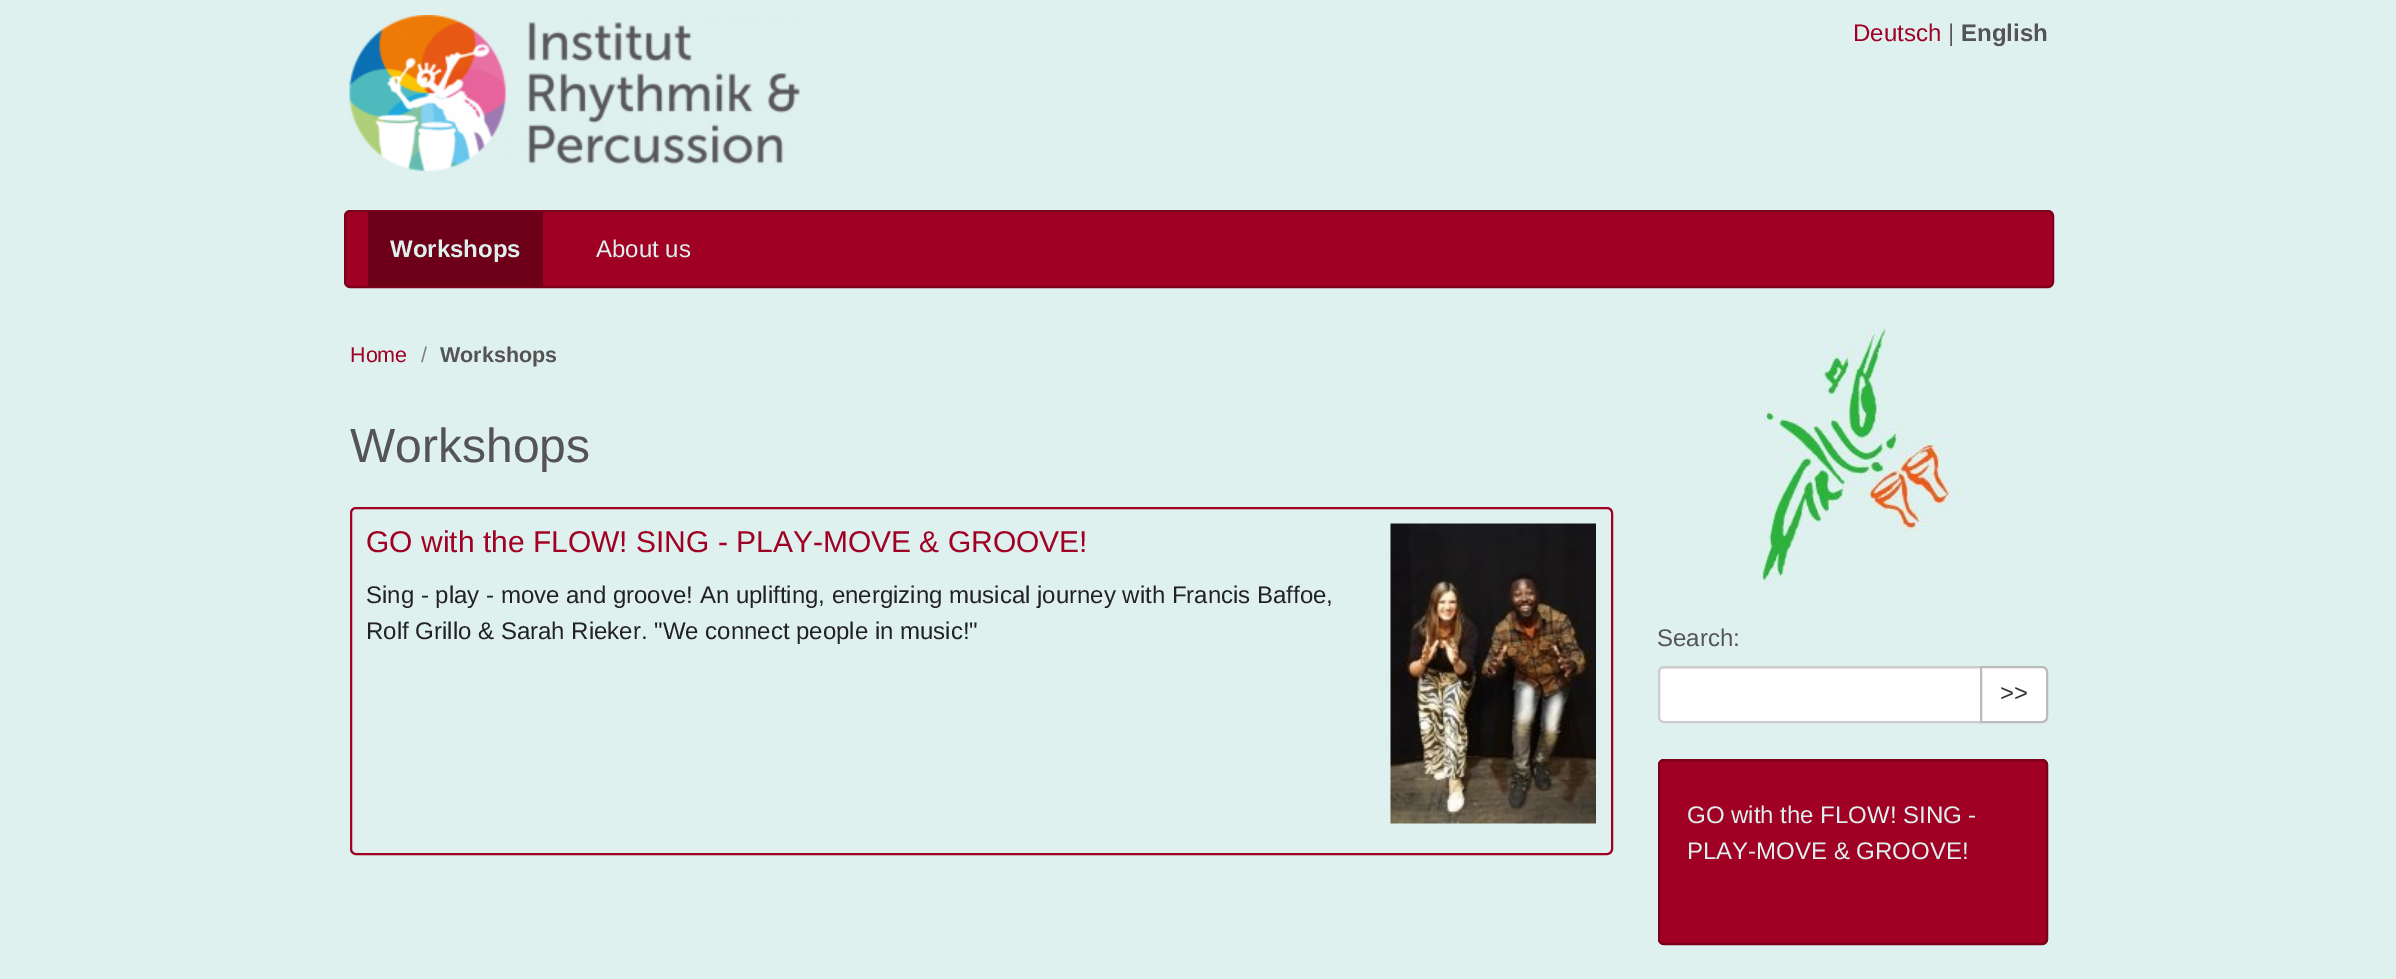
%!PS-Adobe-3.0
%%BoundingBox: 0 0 2396 979
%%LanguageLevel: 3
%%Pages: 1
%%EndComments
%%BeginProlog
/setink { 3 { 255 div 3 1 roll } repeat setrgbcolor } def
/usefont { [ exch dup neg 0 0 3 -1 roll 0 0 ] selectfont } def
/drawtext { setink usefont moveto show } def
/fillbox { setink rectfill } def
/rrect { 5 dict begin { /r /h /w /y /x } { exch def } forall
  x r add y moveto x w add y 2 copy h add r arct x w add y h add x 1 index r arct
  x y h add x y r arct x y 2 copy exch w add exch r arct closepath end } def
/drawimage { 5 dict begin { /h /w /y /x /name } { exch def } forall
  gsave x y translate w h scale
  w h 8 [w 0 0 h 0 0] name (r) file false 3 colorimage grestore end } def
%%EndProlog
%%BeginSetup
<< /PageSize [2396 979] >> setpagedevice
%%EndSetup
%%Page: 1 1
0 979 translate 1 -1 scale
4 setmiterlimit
0 0 2396 979 223 241 239 fillbox
(assets/img1.rgb) 349 15 451 156 drawimage
(Deutsch) 1853 41 /LiberationSans-Regular 24 160 0 35 drawtext
(|) 1948 41 /LiberationSans-Regular 24 84 84 84 drawtext
(English) 1961 41 /LiberationSans-Bold 24 84 84 84 drawtext
160 0 35 setink
345 211 1708 76 5 rrect gsave fill grestore
124 0 27 setink
2 setlinewidth
stroke
368 212 175 75 109 0 24 fillbox
(Workshops) 390 257 /LiberationSans-Bold 24 223 241 239 drawtext
(About us) 596 257 /LiberationSans-Regular 24 223 241 239 drawtext
(Home) 350 362 /LiberationSans-Regular 21.5 160 0 35 drawtext
(/) 421 362 /LiberationSans-Regular 21.5 128 128 128 drawtext
(Workshops) 440 362 /LiberationSans-Bold 21.5 84 84 84 drawtext
(Workshops) 350 462 /LiberationSans-Regular 48 84 84 84 drawtext
160 0 35 setink
351 508 1261 346 5 rrect stroke
(GO with the FLOW! SING - PLAY-MOVE & GROOVE!) 366 552 /LiberationSans-Regular 30 160 0 35 drawtext
(assets/img2.rgb) 1390 523 206 301 drawimage
(Sing - play - move and groove! An uplifting, energizing musical journey with Francis Baffoe,) 366 603 /LiberationSans-Regular 24 34 34 34 drawtext
(Rolf Grillo & Sarah Rieker. "We connect people in music!") 366 639 /LiberationSans-Regular 24 34 34 34 drawtext
(assets/img3.rgb) 1760 324 206 261 drawimage
(Search:) 1657 646 /LiberationSans-Regular 24 84 84 84 drawtext
255 255 255 setink
1664 666 moveto 1982 666 lineto 1982 723 lineto 1664 723 lineto 1660.5 723 1658 720.5 1658 717 curveto 1658 672 lineto 1658 668.5 1660.5 666 1664 666 curveto closepath fill
236 236 236 setink
1664 669 moveto 1980 669 lineto 1980 668 lineto 1664 668 lineto 1661 668 1659 671 1659 674 curveto 1659 671 1661 669 1664 669 curveto closepath fill
204 204 204 setink
1664 667 moveto 1981 667 lineto 1981 722 lineto 1664 722 lineto 1661 722 1659 720 1659 717 curveto 1659 672 lineto 1659 669 1661 667 1664 667 curveto closepath stroke
255 255 255 setink
1981 667 moveto 2042 667 lineto 2045 667 2047 669 2047 672 curveto 2047 717 lineto 2047 720 2045 722 2042 722 curveto 1981 722 lineto closepath gsave fill grestore
187 187 187 setink
stroke
(>>) 2000 701 /LiberationSans-Regular 24 51 51 51 drawtext
160 0 35 setink
1658 759 390 186 6 rrect fill
152 0 33 setink
1664 762 moveto 2042 762 lineto 2044 762 2046 764 2046 766 curveto 2046 763 2044 761 2041 761 curveto 1664 761 lineto 1661 761 1659 763 1659 766 curveto 1659 764 1661 762 1664 762 curveto closepath fill
124 0 27 setink
1659 760 388 184 5 rrect stroke
(GO with the FLOW! SING -) 1687 823 /LiberationSans-Regular 24 223 241 239 drawtext
(PLAY-MOVE & GROOVE!) 1687 859 /LiberationSans-Regular 24 223 241 239 drawtext
showpage
%%EOF
